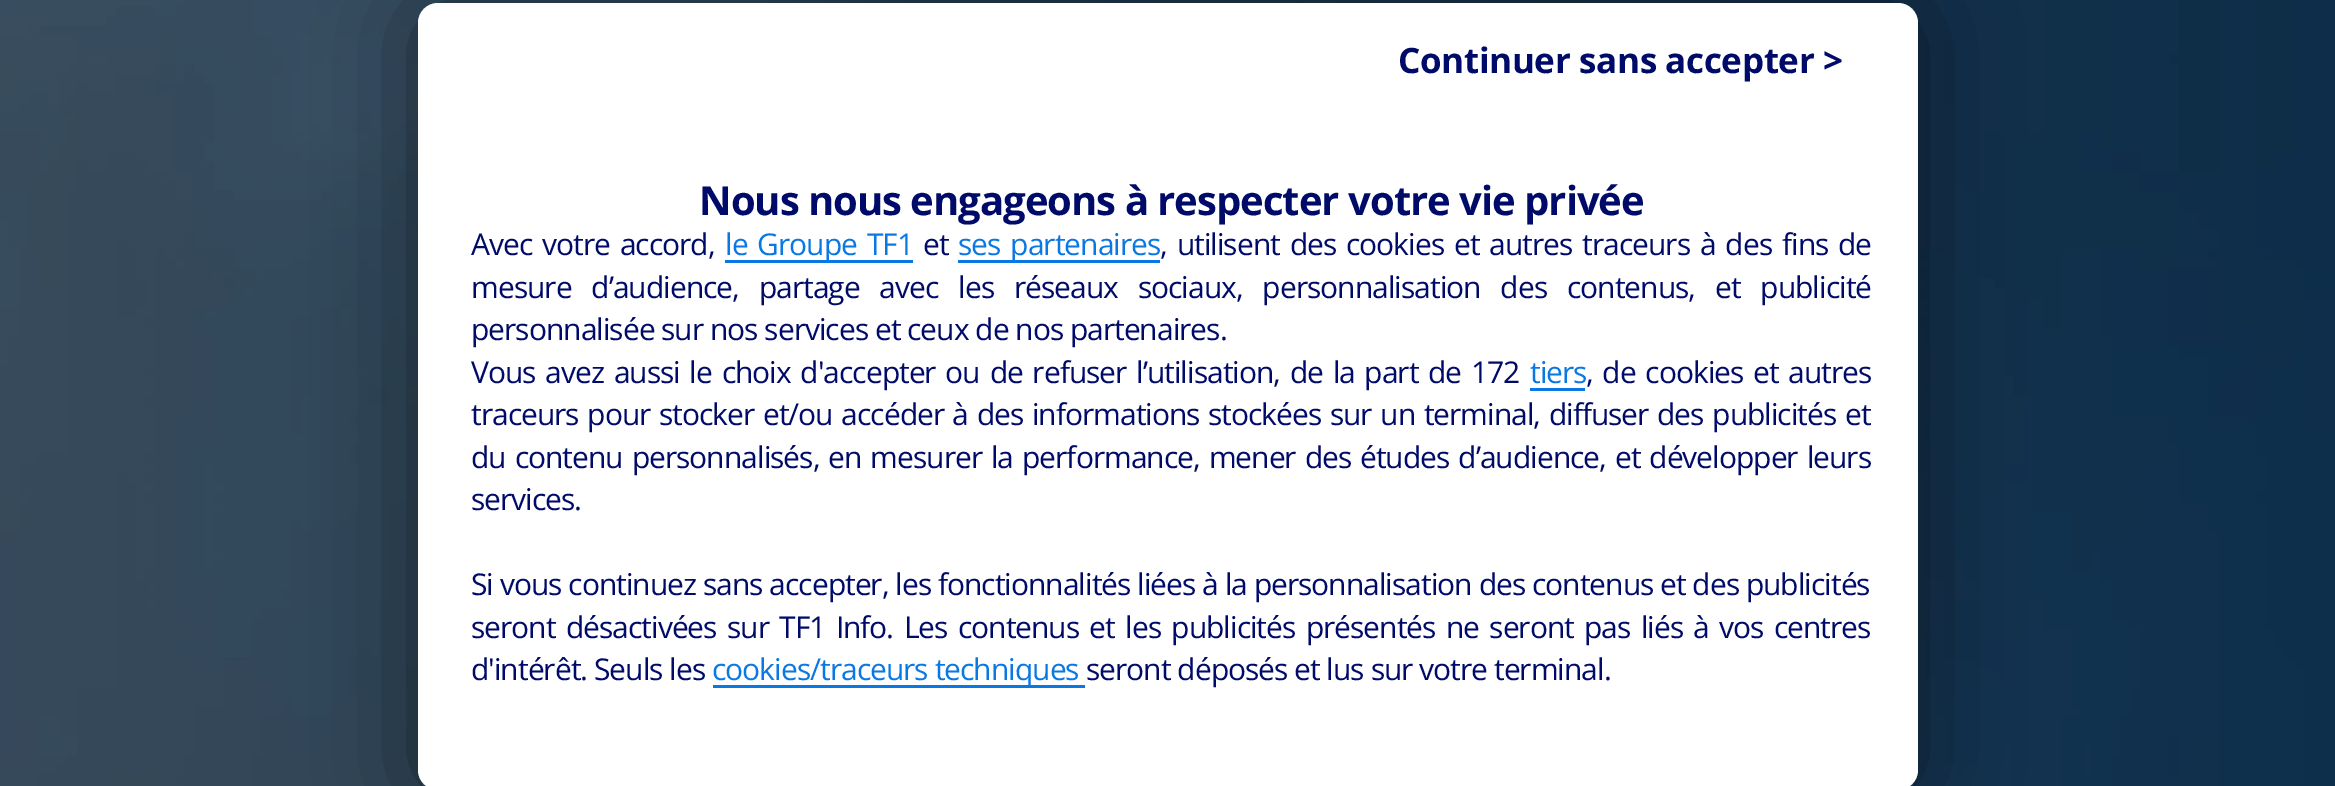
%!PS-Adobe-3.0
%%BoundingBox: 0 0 2335 786
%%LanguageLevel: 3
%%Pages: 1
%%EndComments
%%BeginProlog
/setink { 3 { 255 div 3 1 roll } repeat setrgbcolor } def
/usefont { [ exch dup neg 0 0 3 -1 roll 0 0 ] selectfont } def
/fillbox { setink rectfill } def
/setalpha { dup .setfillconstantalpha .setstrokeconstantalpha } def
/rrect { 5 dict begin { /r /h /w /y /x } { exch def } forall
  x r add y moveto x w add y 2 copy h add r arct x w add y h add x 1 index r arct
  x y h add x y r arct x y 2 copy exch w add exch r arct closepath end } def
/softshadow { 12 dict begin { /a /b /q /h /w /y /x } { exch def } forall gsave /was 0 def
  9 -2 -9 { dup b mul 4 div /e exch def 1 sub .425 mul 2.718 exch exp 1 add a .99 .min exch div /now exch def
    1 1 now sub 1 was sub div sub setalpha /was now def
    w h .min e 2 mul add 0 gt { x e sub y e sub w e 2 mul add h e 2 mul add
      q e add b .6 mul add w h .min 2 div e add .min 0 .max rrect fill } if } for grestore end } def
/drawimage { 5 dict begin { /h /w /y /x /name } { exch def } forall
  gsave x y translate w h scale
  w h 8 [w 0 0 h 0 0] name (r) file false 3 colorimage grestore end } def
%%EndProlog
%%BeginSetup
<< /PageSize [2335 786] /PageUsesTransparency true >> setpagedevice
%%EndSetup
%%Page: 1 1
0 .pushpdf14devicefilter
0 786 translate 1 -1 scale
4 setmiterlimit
0 0 2335 786 255 255 255 fillbox
(assets/img1.rgb) 0 0 2335 786 drawimage
gsave
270 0 moveto 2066 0 lineto 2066 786 lineto 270 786 lineto closepath 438 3 moveto 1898 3 lineto 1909 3 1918 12 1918 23 curveto 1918 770 lineto 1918 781 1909 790 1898 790 curveto 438 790 lineto 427 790 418 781 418 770 curveto 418 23 lineto 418 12 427 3 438 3 curveto closepath eoclip newpath
0 0 0 setink
418 8 1500 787 20 49 0.5 softshadow
grestore
418 3 1500 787 20 rrect fill
/OpenSans-Bold 35 usefont
0 10 104 setink
1398 73 moveto -0.35 0 (Continuer sans accepter >) ashow
/OpenSans-Bold 40 usefont
699 215 moveto -1 0 (Nous nous engageons à respecter votre vie privée) ashow
/OpenSans-Regular 30 usefont
471 255 moveto 3.1 0 32 -1 0 (Avec votre accord,) awidthshow
725 260 188 3 10 120 227 fillbox
725 255 moveto 3.1 0 32 -1 0 (le Groupe TF1) awidthshow
0 10 104 setink
923 255 moveto -1 0 (et) ashow
958 260 202 3 10 120 227 fillbox
958 255 moveto 3.1 0 32 -1 0 (ses partenaires) awidthshow
0 10 104 setink
1160 255 moveto 3.1 0 32 -1 0 (, utilisent des cookies et autres traceurs à des fins de) awidthshow
471 298 moveto 13.1 0 32 -1 0 (mesure d’audience, partage avec les réseaux sociaux, personnalisation des contenus, et publicité) awidthshow
471 340 moveto -1 0 (personnalisée sur nos services et ceux de nos partenaires.) ashow
471 383 moveto 2.9 0 32 -1 0 (Vous avez aussi le choix d'accepter ou de refuser l’utilisation, de la part de) awidthshow
1471 383 moveto -1 0 (172) ashow
10 120 227 setink
1530 383 moveto -1 0 (tiers) ashow
1530 388 55 3 10 120 227 fillbox
0 10 104 setink
1586 383 moveto 2.9 0 32 -1 0 (, de cookies et autres) awidthshow
471 425 moveto 1.75 0 32 -1 0 (traceurs pour stocker et/ou accéder à des informations stockées sur un terminal, diffuser des publicités et) awidthshow
471 468 moveto 2.1 0 32 -1 0 (du contenu personnalisés, en mesurer la performance, mener des études d’audience, et développer leurs) awidthshow
471 510 moveto -1 0 (services.) ashow
471 595 moveto -1 0 (Si vous continuez sans accepter, les fonctionnalités liées à la personnalisation des contenus et des publicités) ashow
471 638 moveto 3.5 0 32 -1 0 (seront désactivées sur TF1 Info. Les contenus et les publicités présentés ne seront pas liés à vos centres) awidthshow
471 680 moveto -1 0 (d'intérêt. Seuls les) ashow
713 685 372 3 10 120 227 fillbox
712 680 moveto -1 0 (cookies/traceurs techniques) ashow
0 10 104 setink
1086 680 moveto -1 0 (seront déposés et lus sur votre terminal.) ashow
.poppdf14devicefilter showpage
%%EOF
